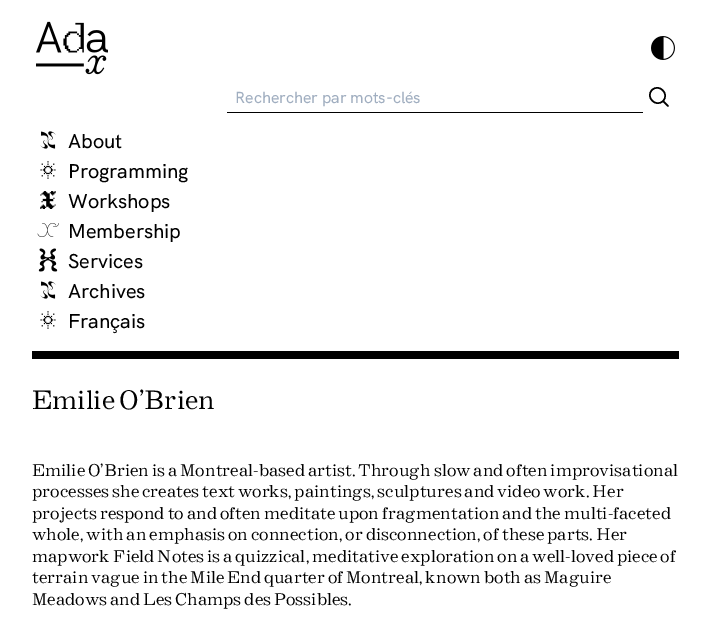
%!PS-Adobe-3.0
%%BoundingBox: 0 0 711 619
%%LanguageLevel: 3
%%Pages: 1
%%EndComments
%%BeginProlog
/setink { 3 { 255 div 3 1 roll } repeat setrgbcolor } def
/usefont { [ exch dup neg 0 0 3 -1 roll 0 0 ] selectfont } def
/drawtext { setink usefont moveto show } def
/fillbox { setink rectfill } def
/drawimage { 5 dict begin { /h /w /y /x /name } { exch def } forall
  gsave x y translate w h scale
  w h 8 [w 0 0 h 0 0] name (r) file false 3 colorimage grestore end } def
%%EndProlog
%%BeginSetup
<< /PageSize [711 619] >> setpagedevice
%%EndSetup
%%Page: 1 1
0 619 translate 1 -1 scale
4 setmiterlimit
0 0 711 619 255 255 255 fillbox
32 351 647 8 0 0 0 fillbox
(assets/img1.rgb) 36 21 72 54 drawimage
(assets/img2.rgb) 651 36 24 24 drawimage
227 112 416 1 0 0 0 fillbox
(Rechercher par mots-clés) 235 103 /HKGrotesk-Medium 16 160 174 192 drawtext
0 0 0 setink
1.5 setlinewidth
1 setlinecap
1 setlinejoin
668 106 moveto 663 101 lineto 663 101 moveto 670 94 659 83 652 90 curveto 645 97 656 108 663 101 curveto closepath stroke
(assets/img3.rgb) 40 131 16 18 drawimage
(About) 68 148 /HKGrotesk-Medium 20 0 0 0 drawtext
(assets/img4.rgb) 40 161 16 18 drawimage
(Programming) 68 178 /HKGrotesk-Medium 20 0 0 0 drawtext
(assets/img5.rgb) 40 191 16 18 drawimage
(Workshops) 68 208 /HKGrotesk-Medium 20 0 0 0 drawtext
(assets/img6.rgb) 37 223 22 14 drawimage
(Membership) 68 238 /HKGrotesk-Medium 20 0 0 0 drawtext
(assets/img7.rgb) 38 248 20 24 drawimage
(Services) 68 268 /HKGrotesk-Medium 20 0 0 0 drawtext
(assets/img3.rgb) 40 281 16 18 drawimage
(Archives) 68 298 /HKGrotesk-Medium 20 0 0 0 drawtext
(assets/img4.rgb) 40 311 16 18 drawimage
(Français) 68 328 /HKGrotesk-Medium 20 0 0 0 drawtext
(Emilie O’Brien) 32 409 /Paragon-Regular 25 0 0 0 drawtext
(Emilie O’Brien is a Montreal-based artist. Through slow and often improvisational) 32 476 /Paragon-Regular 16 0 0 0 drawtext
(processes she creates text works, paintings, sculptures and video work. Her) 32 497 /Paragon-Regular 16 0 0 0 drawtext
(projects respond to and often meditate upon fragmentation and the multi-faceted) 32 519 /Paragon-Regular 16 0 0 0 drawtext
(whole, with an emphasis on connection, or disconnection, of these parts. Her) 32 540 /Paragon-Regular 16 0 0 0 drawtext
(mapwork Field Notes is a quizzical, meditative exploration on a well-loved piece of) 32 562 /Paragon-Regular 16 0 0 0 drawtext
(terrain vague in the Mile End quarter of Montreal, known both as Maguire) 32 583 /Paragon-Regular 16 0 0 0 drawtext
(Meadows and Les Champs des Possibles.) 32 605 /Paragon-Regular 16 0 0 0 drawtext
showpage
%%EOF
